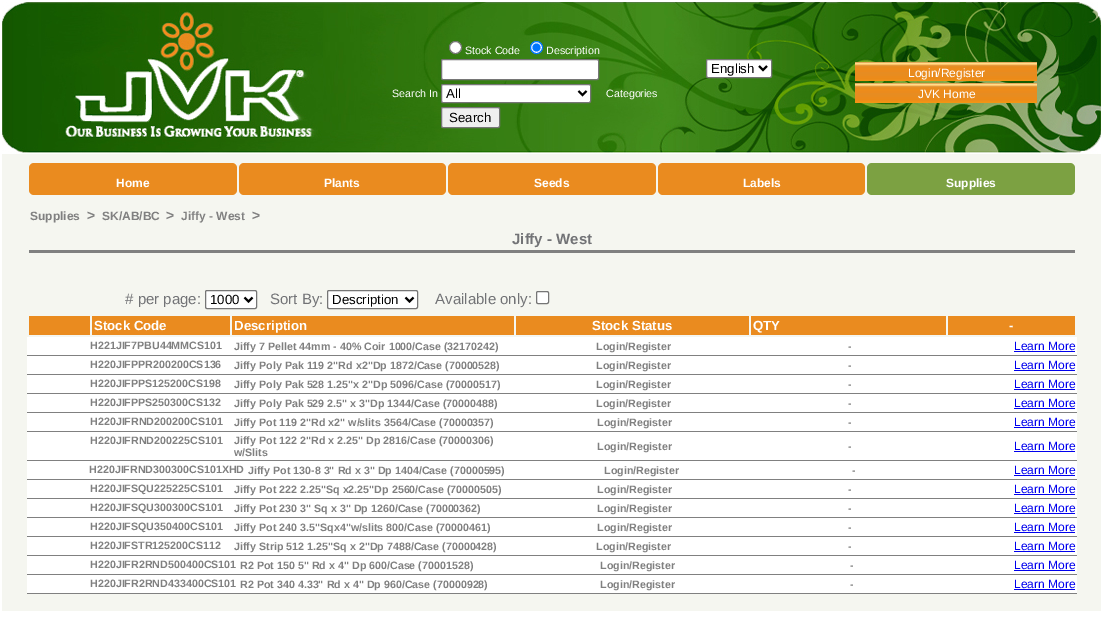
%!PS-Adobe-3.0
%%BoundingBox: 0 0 1101 635
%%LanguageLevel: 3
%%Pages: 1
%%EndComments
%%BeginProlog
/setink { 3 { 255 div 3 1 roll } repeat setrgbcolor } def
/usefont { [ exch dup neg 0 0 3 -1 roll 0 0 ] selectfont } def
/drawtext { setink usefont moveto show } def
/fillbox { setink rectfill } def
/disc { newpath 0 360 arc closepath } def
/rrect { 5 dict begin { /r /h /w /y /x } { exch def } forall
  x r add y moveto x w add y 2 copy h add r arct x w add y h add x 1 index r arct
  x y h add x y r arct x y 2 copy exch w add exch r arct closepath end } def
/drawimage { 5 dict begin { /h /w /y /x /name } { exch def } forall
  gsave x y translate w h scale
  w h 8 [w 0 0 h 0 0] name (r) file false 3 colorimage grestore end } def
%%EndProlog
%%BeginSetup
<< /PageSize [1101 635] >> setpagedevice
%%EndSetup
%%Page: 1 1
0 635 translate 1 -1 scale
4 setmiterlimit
0 0 1101 635 255 255 255 fillbox
2 154 1099 457 245 246 240 fillbox
(assets/img1.rgb) 2 2 1099 152 drawimage
255 255 255 setink
455.5 47.5 6 disc gsave fill grestore
118 118 118 setink
stroke
(Stock Code) 465 54 /LiberationSans-Regular 10.7 255 255 255 drawtext
536.5 47.5 6 disc gsave fill grestore
0 117 255 setink
stroke
536.5 47.5 4 disc fill
(Description) 546 54 /LiberationSans-Regular 10.7 255 255 255 drawtext
441.5 59.5 157 20 1.5 rrect gsave fill grestore
118 118 118 setink
stroke
(Search In) 392 97 /LiberationSans-Regular 10.7 255 255 255 drawtext
441.5 84.5 149 18 1.5 rrect gsave fill grestore
118 118 118 setink
stroke
0 0 0 setink
2 setlinewidth
578.5 91 moveto 582.5 95 lineto 586.5 91 lineto stroke
(All) 446 98 /LiberationSans-Regular 13.25 0 0 0 drawtext
(Categories) 606 97 /LiberationSans-Regular 10.7 255 255 255 drawtext
239 239 239 setink
441.5 107.5 58 20 1.5 rrect gsave fill grestore
118 118 118 setink
1 setlinewidth
stroke
(Search) 449 122 /LiberationSans-Regular 13.25 0 0 0 drawtext
255 255 255 setink
706.5 59.5 65 18 1.5 rrect gsave fill grestore
118 118 118 setink
stroke
0 0 0 setink
2 setlinewidth
759 66 moveto 763 70 lineto 767 66 lineto stroke
(English) 711 73 /LiberationSans-Regular 13.25 0 0 0 drawtext
(assets/img2.rgb) 855 62 182 19 drawimage
(Login/Register) 908 77 /LiberationSans-Regular 12 255 255 255 drawtext
(assets/img3.rgb) 855 83 182 20 drawimage
(JVK Home) 918 98 /LiberationSans-Regular 12 255 255 255 drawtext
234 139 31 setink
29 163 208 32 5 rrect fill
(Home) 116 187 /LiberationSans-Bold 12 255 255 255 drawtext
234 139 31 setink
239 163 207 32 5 rrect fill
(Plants) 324 187 /LiberationSans-Bold 12 255 255 255 drawtext
234 139 31 setink
448 163 208 32 5 rrect fill
(Seeds) 534 187 /LiberationSans-Bold 12 255 255 255 drawtext
234 139 31 setink
658 163 207 32 5 rrect fill
(Labels) 743 187 /LiberationSans-Bold 12 255 255 255 drawtext
124 161 66 setink
867 163 208 32 5 rrect fill
(Supplies) 946 187 /LiberationSans-Bold 12 255 255 255 drawtext
(Supplies) 30 220 /LiberationSans-Bold 12 128 128 128 drawtext
(>) 87 220 /LiberationSans-Bold 14 128 128 128 drawtext
(SK/AB/BC) 102 220 /LiberationSans-Bold 12 128 128 128 drawtext
(>) 166 220 /LiberationSans-Bold 14 128 128 128 drawtext
(Jiffy - West) 181 220 /LiberationSans-Bold 12 128 128 128 drawtext
(>) 252 220 /LiberationSans-Bold 14 128 128 128 drawtext
(Jiffy - West) 512 244 /LiberationSans-Bold 15 114 115 118 drawtext
29 250 1046 3 128 128 128 fillbox
(# per page:) 125 304 /LiberationSans-Regular 15 114 115 118 drawtext
255 255 255 setink
205.5 290.5 51 18 1.5 rrect gsave fill grestore
118 118 118 setink
1 setlinewidth
stroke
0 0 0 setink
2 setlinewidth
244.5 297.5 moveto 248.5 301.5 lineto 252.5 297.5 lineto stroke
(1000) 210 304 /LiberationSans-Regular 13.25 0 0 0 drawtext
(Sort By:) 270 304 /LiberationSans-Regular 15 114 115 118 drawtext
255 255 255 setink
327.5 290.5 90 18 1.5 rrect gsave fill grestore
118 118 118 setink
1 setlinewidth
stroke
0 0 0 setink
2 setlinewidth
405.5 297.5 moveto 409.5 301.5 lineto 413.5 297.5 lineto stroke
(Description) 332 304 /LiberationSans-Regular 13.25 0 0 0 drawtext
(Available only:) 435 304 /LiberationSans-Regular 15 114 115 118 drawtext
255 255 255 setink
536.5 291.5 12 12 1.5 rrect gsave fill grestore
118 118 118 setink
1 setlinewidth
stroke
29 316 61 19 234 139 31 fillbox
92 316 138 19 234 139 31 fillbox
(Stock Code) 94 330 /LiberationSans-Bold 13.25 255 255 255 drawtext
232 316 282 19 234 139 31 fillbox
(Description) 234 330 /LiberationSans-Bold 13.25 255 255 255 drawtext
516 316 233 19 234 139 31 fillbox
(Stock Status) 592 330 /LiberationSans-Bold 13.25 255 255 255 drawtext
751 316 195 19 234 139 31 fillbox
(QTY) 753 330 /LiberationSans-Bold 13.25 255 255 255 drawtext
948 316 127 19 234 139 31 fillbox
(-) 1009 330 /LiberationSans-Bold 13.25 255 255 255 drawtext
27 337 1050 18 255 255 255 fillbox
(H221JIF7PBU44MMCS101) 90 349 /LiberationSans-Bold 10.7 128 128 128 drawtext
(Jiffy 7 Pellet 44mm - 40% Coir 1000/Case \(32170242\)) 234 350 /LiberationSans-Bold 10.7 128 128 128 drawtext
(Login/Register) 596 350 /LiberationSans-Bold 10.7 128 128 128 drawtext
(-) 848 350 /LiberationSans-Bold 10.7 128 128 128 drawtext
(Learn More) 1014 350 /LiberationSans-Regular 12 0 0 238 drawtext
1014 351 61 1 0 0 238 fillbox
27 355 1050 1 128 128 128 fillbox
27 356 1050 18 255 255 255 fillbox
(H220JIFPPR200200CS136) 90 368 /LiberationSans-Bold 10.7 128 128 128 drawtext
(Jiffy Poly Pak 119 2"Rd x2"Dp 1872/Case \(70000528\)) 234 369 /LiberationSans-Bold 10.7 128 128 128 drawtext
(Login/Register) 596 369 /LiberationSans-Bold 10.7 128 128 128 drawtext
(-) 848 369 /LiberationSans-Bold 10.7 128 128 128 drawtext
(Learn More) 1014 369 /LiberationSans-Regular 12 0 0 238 drawtext
1014 370 61 1 0 0 238 fillbox
27 374 1050 1 128 128 128 fillbox
27 375 1050 18 255 255 255 fillbox
(H220JIFPPS125200CS198) 90 387 /LiberationSans-Bold 10.7 128 128 128 drawtext
(Jiffy Poly Pak 528 1.25"x 2"Dp 5096/Case \(70000517\)) 234 388 /LiberationSans-Bold 10.7 128 128 128 drawtext
(Login/Register) 596 388 /LiberationSans-Bold 10.7 128 128 128 drawtext
(-) 848 388 /LiberationSans-Bold 10.7 128 128 128 drawtext
(Learn More) 1014 388 /LiberationSans-Regular 12 0 0 238 drawtext
1014 389 61 1 0 0 238 fillbox
27 393 1050 1 128 128 128 fillbox
27 394 1050 18 255 255 255 fillbox
(H220JIFPPS250300CS132) 90 406 /LiberationSans-Bold 10.7 128 128 128 drawtext
(Jiffy Poly Pak 529 2.5" x 3"Dp 1344/Case \(70000488\)) 234 407 /LiberationSans-Bold 10.7 128 128 128 drawtext
(Login/Register) 596 407 /LiberationSans-Bold 10.7 128 128 128 drawtext
(-) 848 407 /LiberationSans-Bold 10.7 128 128 128 drawtext
(Learn More) 1014 407 /LiberationSans-Regular 12 0 0 238 drawtext
1014 408 61 1 0 0 238 fillbox
27 412 1050 1 128 128 128 fillbox
27 413 1050 18 255 255 255 fillbox
(H220JIFRND200200CS101) 90 425 /LiberationSans-Bold 10.7 128 128 128 drawtext
(Jiffy Pot 119 2"Rd x2" w/slits 3564/Case \(70000357\)) 234 426 /LiberationSans-Bold 10.7 128 128 128 drawtext
(Login/Register) 597 426 /LiberationSans-Bold 10.7 128 128 128 drawtext
(-) 848 426 /LiberationSans-Bold 10.7 128 128 128 drawtext
(Learn More) 1014 426 /LiberationSans-Regular 12 0 0 238 drawtext
1014 427 61 1 0 0 238 fillbox
27 431 1050 1 128 128 128 fillbox
27 432 1050 28 255 255 255 fillbox
(H220JIFRND200225CS101) 90 444 /LiberationSans-Bold 10.7 128 128 128 drawtext
(Jiffy Pot 122 2"Rd x 2.25" Dp 2816/Case \(70000306\)) 234 444 /LiberationSans-Bold 10.7 128 128 128 drawtext
(w/Slits) 234 456 /LiberationSans-Bold 10.7 128 128 128 drawtext
(Login/Register) 597 450 /LiberationSans-Bold 10.7 128 128 128 drawtext
(-) 848 450 /LiberationSans-Bold 10.7 128 128 128 drawtext
(Learn More) 1014 450 /LiberationSans-Regular 12 0 0 238 drawtext
1014 451 61 1 0 0 238 fillbox
27 460 1050 1 128 128 128 fillbox
27 461 1050 18 255 255 255 fillbox
(H220JIFRND300300CS101XHD) 89 473 /LiberationSans-Bold 10.7 128 128 128 drawtext
(Jiffy Pot 130-8 3" Rd x 3" Dp 1404/Case \(70000595\)) 248 474 /LiberationSans-Bold 10.7 128 128 128 drawtext
(Login/Register) 604 474 /LiberationSans-Bold 10.7 128 128 128 drawtext
(-) 852 474 /LiberationSans-Bold 10.7 128 128 128 drawtext
(Learn More) 1014 474 /LiberationSans-Regular 12 0 0 238 drawtext
1014 475 61 1 0 0 238 fillbox
27 479 1050 1 128 128 128 fillbox
27 480 1050 18 255 255 255 fillbox
(H220JIFSQU225225CS101) 90 492 /LiberationSans-Bold 10.7 128 128 128 drawtext
(Jiffy Pot 222 2.25"Sq x2.25"Dp 2560/Case \(70000505\)) 234 493 /LiberationSans-Bold 10.7 128 128 128 drawtext
(Login/Register) 597 493 /LiberationSans-Bold 10.7 128 128 128 drawtext
(-) 848 493 /LiberationSans-Bold 10.7 128 128 128 drawtext
(Learn More) 1014 493 /LiberationSans-Regular 12 0 0 238 drawtext
1014 494 61 1 0 0 238 fillbox
27 498 1050 1 128 128 128 fillbox
27 499 1050 18 255 255 255 fillbox
(H220JIFSQU300300CS101) 90 511 /LiberationSans-Bold 10.7 128 128 128 drawtext
(Jiffy Pot 230 3" Sq x 3" Dp 1260/Case \(70000362\)) 234 512 /LiberationSans-Bold 10.7 128 128 128 drawtext
(Login/Register) 597 512 /LiberationSans-Bold 10.7 128 128 128 drawtext
(-) 848 512 /LiberationSans-Bold 10.7 128 128 128 drawtext
(Learn More) 1014 512 /LiberationSans-Regular 12 0 0 238 drawtext
1014 513 61 1 0 0 238 fillbox
27 517 1050 1 128 128 128 fillbox
27 518 1050 18 255 255 255 fillbox
(H220JIFSQU350400CS101) 90 530 /LiberationSans-Bold 10.7 128 128 128 drawtext
(Jiffy Pot 240 3.5"Sqx4"w/slits 800/Case \(70000461\)) 234 531 /LiberationSans-Bold 10.7 128 128 128 drawtext
(Login/Register) 597 531 /LiberationSans-Bold 10.7 128 128 128 drawtext
(-) 848 531 /LiberationSans-Bold 10.7 128 128 128 drawtext
(Learn More) 1014 531 /LiberationSans-Regular 12 0 0 238 drawtext
1014 532 61 1 0 0 238 fillbox
27 536 1050 1 128 128 128 fillbox
27 537 1050 18 255 255 255 fillbox
(H220JIFSTR125200CS112) 90 549 /LiberationSans-Bold 10.7 128 128 128 drawtext
(Jiffy Strip 512 1.25"Sq x 2"Dp 7488/Case \(70000428\)) 234 550 /LiberationSans-Bold 10.7 128 128 128 drawtext
(Login/Register) 596 550 /LiberationSans-Bold 10.7 128 128 128 drawtext
(-) 848 550 /LiberationSans-Bold 10.7 128 128 128 drawtext
(Learn More) 1014 550 /LiberationSans-Regular 12 0 0 238 drawtext
1014 551 61 1 0 0 238 fillbox
27 555 1050 1 128 128 128 fillbox
27 556 1050 18 255 255 255 fillbox
(H220JIFR2RND500400CS101) 90 568 /LiberationSans-Bold 10.7 128 128 128 drawtext
(R2 Pot 150 5" Rd x 4" Dp 600/Case \(70001528\)) 240 569 /LiberationSans-Bold 10.7 128 128 128 drawtext
(Login/Register) 600 569 /LiberationSans-Bold 10.7 128 128 128 drawtext
(-) 850 569 /LiberationSans-Bold 10.7 128 128 128 drawtext
(Learn More) 1014 569 /LiberationSans-Regular 12 0 0 238 drawtext
1014 570 61 1 0 0 238 fillbox
27 574 1050 1 128 128 128 fillbox
27 575 1050 18 255 255 255 fillbox
(H220JIFR2RND433400CS101) 90 587 /LiberationSans-Bold 10.7 128 128 128 drawtext
(R2 Pot 340 4.33" Rd x 4" Dp 960/Case \(70000928\)) 240 588 /LiberationSans-Bold 10.7 128 128 128 drawtext
(Login/Register) 600 588 /LiberationSans-Bold 10.7 128 128 128 drawtext
(-) 850 588 /LiberationSans-Bold 10.7 128 128 128 drawtext
(Learn More) 1014 588 /LiberationSans-Regular 12 0 0 238 drawtext
1014 589 61 1 0 0 238 fillbox
27 593 1050 1 128 128 128 fillbox
showpage
%%EOF
